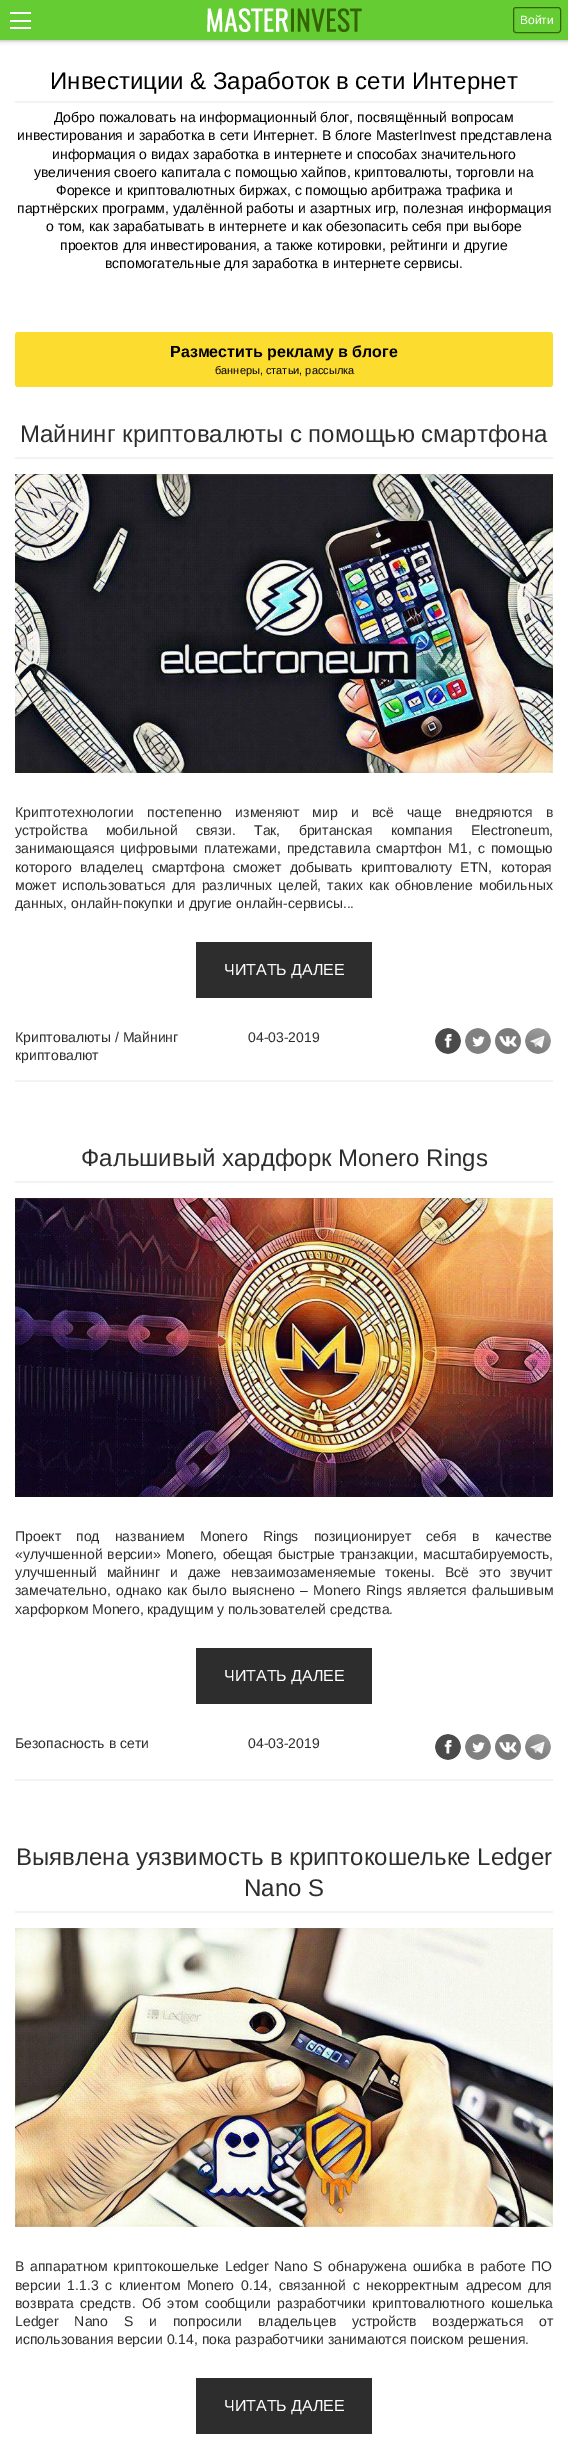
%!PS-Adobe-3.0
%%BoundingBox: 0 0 568 2449
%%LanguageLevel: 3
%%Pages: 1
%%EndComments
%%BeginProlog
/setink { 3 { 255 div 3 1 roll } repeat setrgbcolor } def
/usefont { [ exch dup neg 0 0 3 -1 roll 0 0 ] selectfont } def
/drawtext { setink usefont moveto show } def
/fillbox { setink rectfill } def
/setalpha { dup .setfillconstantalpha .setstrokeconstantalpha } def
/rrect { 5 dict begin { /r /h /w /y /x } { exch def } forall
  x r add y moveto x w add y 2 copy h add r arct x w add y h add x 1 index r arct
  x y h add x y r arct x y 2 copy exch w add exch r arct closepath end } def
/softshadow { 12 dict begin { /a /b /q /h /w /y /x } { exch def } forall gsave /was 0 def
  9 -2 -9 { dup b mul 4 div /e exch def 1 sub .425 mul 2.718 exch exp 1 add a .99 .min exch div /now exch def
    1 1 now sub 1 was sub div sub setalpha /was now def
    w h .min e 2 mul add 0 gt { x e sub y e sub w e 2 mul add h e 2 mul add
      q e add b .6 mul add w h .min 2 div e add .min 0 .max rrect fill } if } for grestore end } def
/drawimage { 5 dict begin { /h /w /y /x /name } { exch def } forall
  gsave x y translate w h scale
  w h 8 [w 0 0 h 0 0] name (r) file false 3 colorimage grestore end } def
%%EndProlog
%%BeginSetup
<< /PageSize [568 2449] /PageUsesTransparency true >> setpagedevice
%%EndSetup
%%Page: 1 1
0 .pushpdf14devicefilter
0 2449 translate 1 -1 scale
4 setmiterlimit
0 0 568 2449 255 255 255 fillbox
153 153 153 setink
0 0 568 40 0 2.5 1 softshadow
0 0 568 40 102 204 51 fillbox
(assets/img1.rgb) 10 12 21 17 drawimage
(assets/img2.rgb) 207 8 155 24 drawimage
51 102 0 setink
513.5 7.5 47 25 2.5 rrect stroke
(Войти) 520 24 /LiberationSans-Regular 12 255 255 255 drawtext
15 101 538 2 245 242 244 fillbox
(Инвестиции & Заработок в сети Интернет) 50 89 /LiberationSans-Regular 24 0 0 0 drawtext
(Добро пожаловать на информационный блог, посвящённый вопросам) 54 122 /LiberationSans-Regular 14 0 0 0 drawtext
(инвестирования и заработка в сети Интернет. В блоге MasterInvest представлена) 17 140 /LiberationSans-Regular 14 0 0 0 drawtext
(информация о видах заработка в интернете и способах значительного) 52 159 /LiberationSans-Regular 14 0 0 0 drawtext
(увеличения своего капитала с помощью хайпов, криптовалюты, торговли на) 34 177 /LiberationSans-Regular 14 0 0 0 drawtext
(Форексе и криптовалютных биржах, с помощью арбитража трафика и) 56 195 /LiberationSans-Regular 14 0 0 0 drawtext
(партнёрских программ, удалённой работы и азартных игр, полезная информация) 17 213 /LiberationSans-Regular 14 0 0 0 drawtext
(о том, как зарабатывать в интернете и как обезопасить себя при выборе) 46 231 /LiberationSans-Regular 14 0 0 0 drawtext
(проектов для инвестирования, а также котировки, рейтинги и другие) 60 250 /LiberationSans-Regular 14 0 0 0 drawtext
(вспомогательные для заработка в интернете сервисы.) 105 268 /LiberationSans-Regular 14 0 0 0 drawtext
253 220 48 setink
15 332 538 55 3 rrect fill
(Разместить рекламу в блоге) 170 357 /LiberationSans-Bold 16 0 0 0 drawtext
(баннеры, статьи, рассылка) 215 374 /LiberationSans-Regular 11 0 0 0 drawtext
15 457 538 2 245 242 244 fillbox
(Майнинг криптовалюты с помощью смартфона) 20 442 /LiberationSans-Regular 24 45 45 45 drawtext
(assets/img3.rgb) 15 474 538 299 drawimage
/LiberationSans-Regular 14 usefont
15 817 moveto 9.25 0 32 (Криптотехнологии постепенно изменяют мир и всё чаще внедряются в) widthshow
15 835 moveto 14.25 0 32 (устройства мобильной связи. Так, британская компания Electroneum,) widthshow
15 853 moveto 2.25 0 32 (занимающаяся цифровыми платежами, представила смартфон M1, с помощью) widthshow
15 872 moveto 4.5 0 32 (которого владелец смартфона сможет добывать криптовалюту ETN, которая) widthshow
15 890 moveto 2.25 0 32 (может использоваться для различных целей, таких как обновление мобильных) widthshow
(данных, онлайн-покупки и другие онлайн-сервисы...) 15 908 /LiberationSans-Regular 14 45 45 45 drawtext
196 942 176 56 45 45 45 fillbox
(ЧИТАТЬ ДАЛЕЕ) 224 975 /LiberationSans-Regular 16 255 255 255 drawtext
15 1080 538 2 245 242 244 fillbox
(Криптовалюты / Майнинг) 15 1042 /LiberationSans-Regular 14 45 45 45 drawtext
(криптовалют) 15 1060 /LiberationSans-Regular 14 45 45 45 drawtext
(04-03-2019) 248 1042 /LiberationSans-Regular 14 45 45 45 drawtext
(assets/img4.rgb) 435 1028 26 26 drawimage
(assets/img5.rgb) 465 1028 26 26 drawimage
(assets/img6.rgb) 495 1028 26 26 drawimage
(assets/img7.rgb) 525 1028 26 26 drawimage
15 1181 538 2 245 242 244 fillbox
(Фальшивый хардфорк Monero Rings) 81 1166 /LiberationSans-Regular 24 45 45 45 drawtext
(assets/img8.rgb) 15 1198 538 299 drawimage
/LiberationSans-Regular 14 usefont
15 1541 moveto 11.25 0 32 (Проект под названием Monero Rings позиционирует себя в качестве) widthshow
15 1559 moveto 1.25 0 32 («улучшенной версии» Monero, обещая быстрые транзакции, масштабируемость,) widthshow
15 1577 moveto 6 0 32 (улучшенный майнинг и даже невзаимозаменяемые токены. Всё это звучит) widthshow
15 1595 moveto 1.5 0 32 (замечательно, однако как было выяснено – Monero Rings является фальшивым) widthshow
(харфорком Monero, крадущим у пользователей средства.) 15 1614 /LiberationSans-Regular 14 45 45 45 drawtext
196 1648 176 56 45 45 45 fillbox
(ЧИТАТЬ ДАЛЕЕ) 224 1681 /LiberationSans-Regular 16 255 255 255 drawtext
15 1779 538 2 245 242 244 fillbox
(Безопасность в сети) 15 1748 /LiberationSans-Regular 14 45 45 45 drawtext
(04-03-2019) 248 1748 /LiberationSans-Regular 14 45 45 45 drawtext
(assets/img4.rgb) 435 1734 26 26 drawimage
(assets/img5.rgb) 465 1734 26 26 drawimage
(assets/img6.rgb) 495 1734 26 26 drawimage
(assets/img7.rgb) 525 1734 26 26 drawimage
15 1911 538 2 245 242 244 fillbox
(Выявлена уязвимость в криптокошельке Ledger) 16 1865 /LiberationSans-Regular 24 45 45 45 drawtext
(Nano S) 244 1896 /LiberationSans-Regular 24 45 45 45 drawtext
(assets/img9.rgb) 15 1928 538 299 drawimage
/LiberationSans-Regular 14 usefont
15 2271 moveto 1.75 0 32 (В аппаратном криптокошельке Ledger Nano S обнаружена ошибка в работе ПО) widthshow
15 2290 moveto 2.75 0 32 (версии 1.1.3 с клиентом Monero 0.14, связанной с некорректным адресом для) widthshow
15 2308 moveto 2.5 0 32 (возврата средств. Об этом сообщили разработчики криптовалютного кошелька) widthshow
15 2326 moveto 12 0 32 (Ledger Nano S и попросили владельцев устройств воздержаться от) widthshow
(использования версии 0.14, пока разработчики занимаются поиском решения.) 15 2344 /LiberationSans-Regular 14 45 45 45 drawtext
196 2378 176 56 45 45 45 fillbox
(ЧИТАТЬ ДАЛЕЕ) 224 2411 /LiberationSans-Regular 16 255 255 255 drawtext
.poppdf14devicefilter showpage
%%EOF
